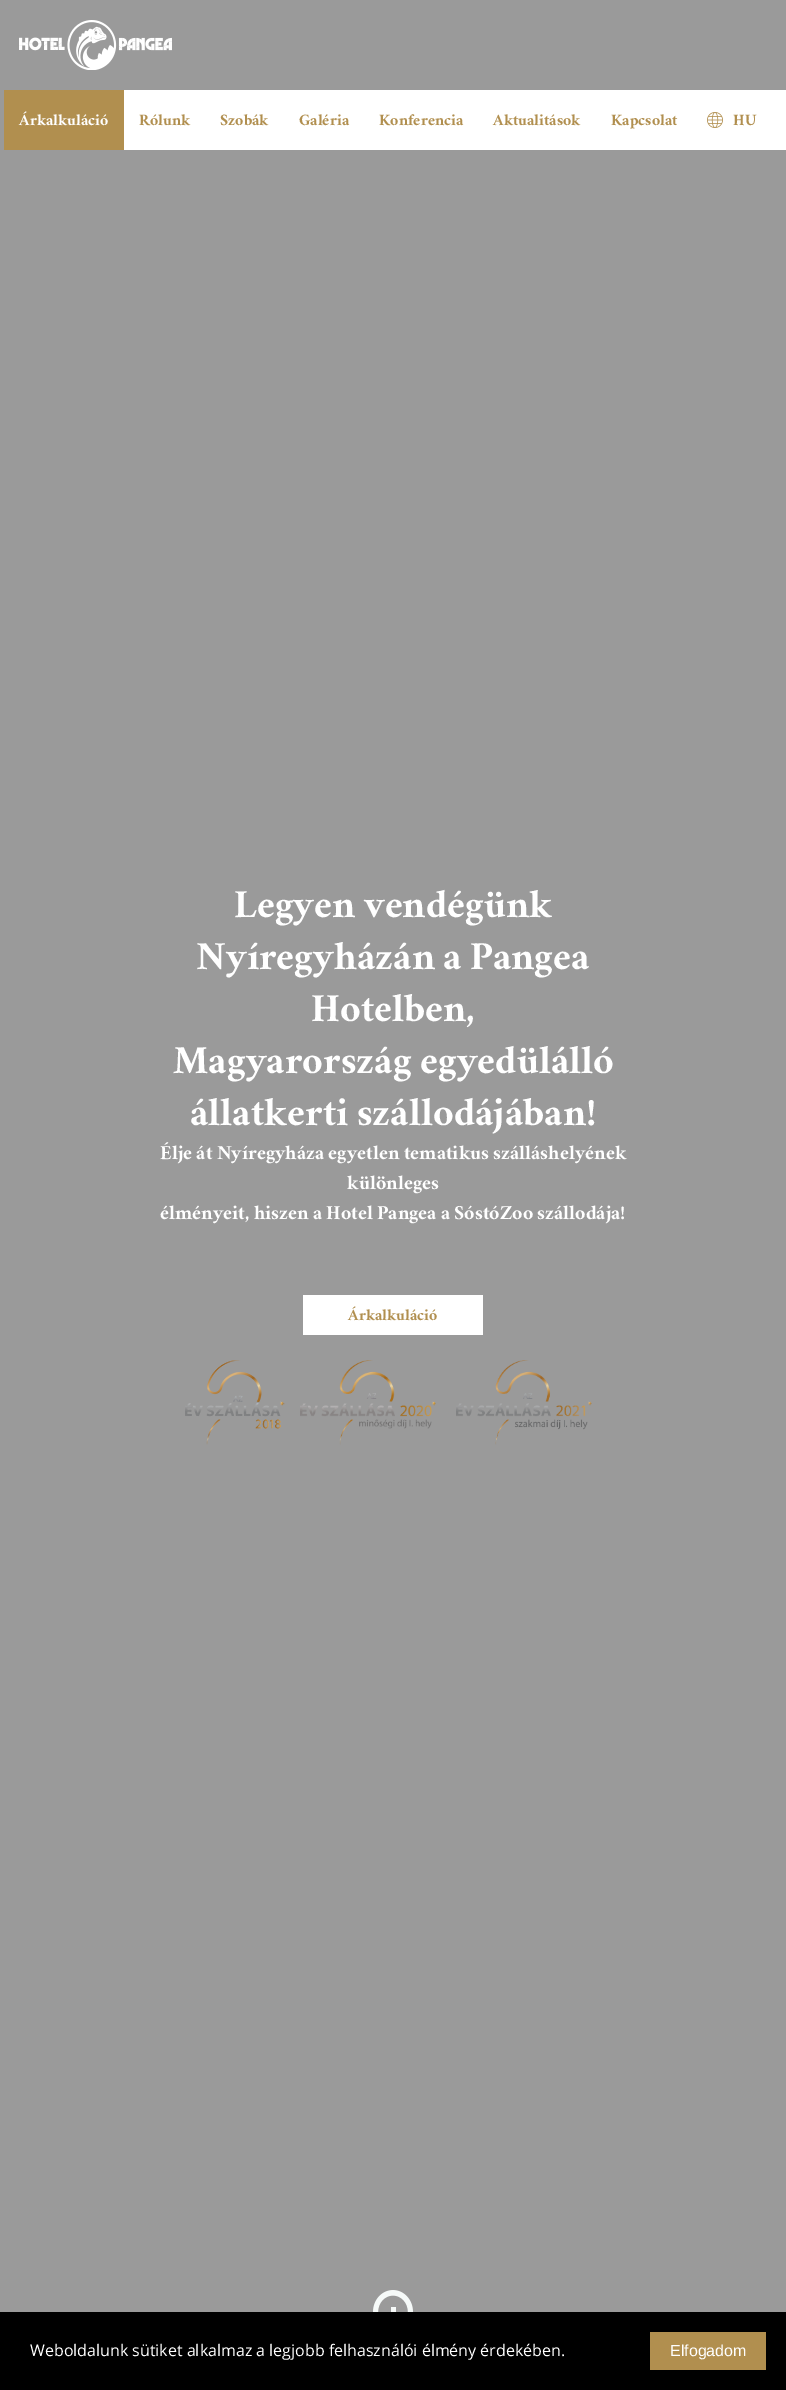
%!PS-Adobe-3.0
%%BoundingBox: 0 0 786 2390
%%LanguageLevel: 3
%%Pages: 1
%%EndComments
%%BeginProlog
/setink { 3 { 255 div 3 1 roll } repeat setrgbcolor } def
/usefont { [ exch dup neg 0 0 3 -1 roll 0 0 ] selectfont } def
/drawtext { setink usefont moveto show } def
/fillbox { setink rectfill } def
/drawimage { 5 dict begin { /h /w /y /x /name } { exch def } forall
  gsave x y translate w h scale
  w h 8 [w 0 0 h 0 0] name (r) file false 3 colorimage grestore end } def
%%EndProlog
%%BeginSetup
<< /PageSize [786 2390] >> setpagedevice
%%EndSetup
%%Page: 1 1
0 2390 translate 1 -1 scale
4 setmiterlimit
0 0 786 2390 154 154 154 fillbox
(assets/img1.rgb) 19 20 153 50 drawimage
124 90 662 60 255 255 255 fillbox
4 90 120 60 177 143 79 fillbox
(Árkalkuláció) 19 125 /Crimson-Bold 16 255 255 255 drawtext
(Rólunk) 139 125 /Crimson-Bold 16 177 143 79 drawtext
(Szobák) 220 125 /Crimson-Bold 16 177 143 79 drawtext
(Galéria) 299 125 /Crimson-Bold 16 177 143 79 drawtext
(Konferencia) 379 125 /Crimson-Bold 16 177 143 79 drawtext
(Aktualitások) 493 125 /Crimson-Bold 16 177 143 79 drawtext
(Kapcsolat) 611 125 /Crimson-Bold 16 177 143 79 drawtext
(assets/img2.rgb) 707 112 16 16 drawimage
(HU) 733 125 /Crimson-Bold 16 177 143 79 drawtext
(Legyen vendégünk) 234 917 /Crimson-Bold 40 255 255 255 drawtext
(Nyíregyházán a Pangea) 196 969 /Crimson-Bold 40 255 255 255 drawtext
(Hotelben,) 311 1021 /Crimson-Bold 40 255 255 255 drawtext
(Magyarország egyedülálló) 173 1073 /Crimson-Bold 40 255 255 255 drawtext
(állatkerti szállodájában!) 190 1125 /Crimson-Bold 40 255 255 255 drawtext
(Élje át Nyíregyháza egyetlen tematikus szálláshelyének) 160 1159 /Crimson-Bold 20 255 255 255 drawtext
(különleges) 347 1189 /Crimson-Bold 20 255 255 255 drawtext
(élményeit, hiszen a Hotel Pangea a SóstóZoo szállodája!) 160 1219 /Crimson-Bold 20 255 255 255 drawtext
303 1295 180 40 255 255 255 fillbox
(Árkalkuláció) 348 1320 /Crimson-Bold 16 177 143 79 drawtext
(assets/img3.rgb) 185 1360 100 85 drawimage
(assets/img4.rgb) 300 1360 136 85 drawimage
(assets/img5.rgb) 456 1360 136 85 drawimage
(assets/img6.rgb) 373 2290 40 22 drawimage
391 2307 5 13 246 250 249 fillbox
0 2312 786 78 0 0 0 fillbox
(Weboldalunk sütiket alkalmaz a legjobb felhasználói élmény érdekében.) 30 2356 /OpenSans-Regular 16 255 255 255 drawtext
650 2332 116 38 177 143 79 fillbox
(Elfogadom) 670 2356 /LiberationSans-Regular 16 255 255 255 drawtext
showpage
%%EOF
